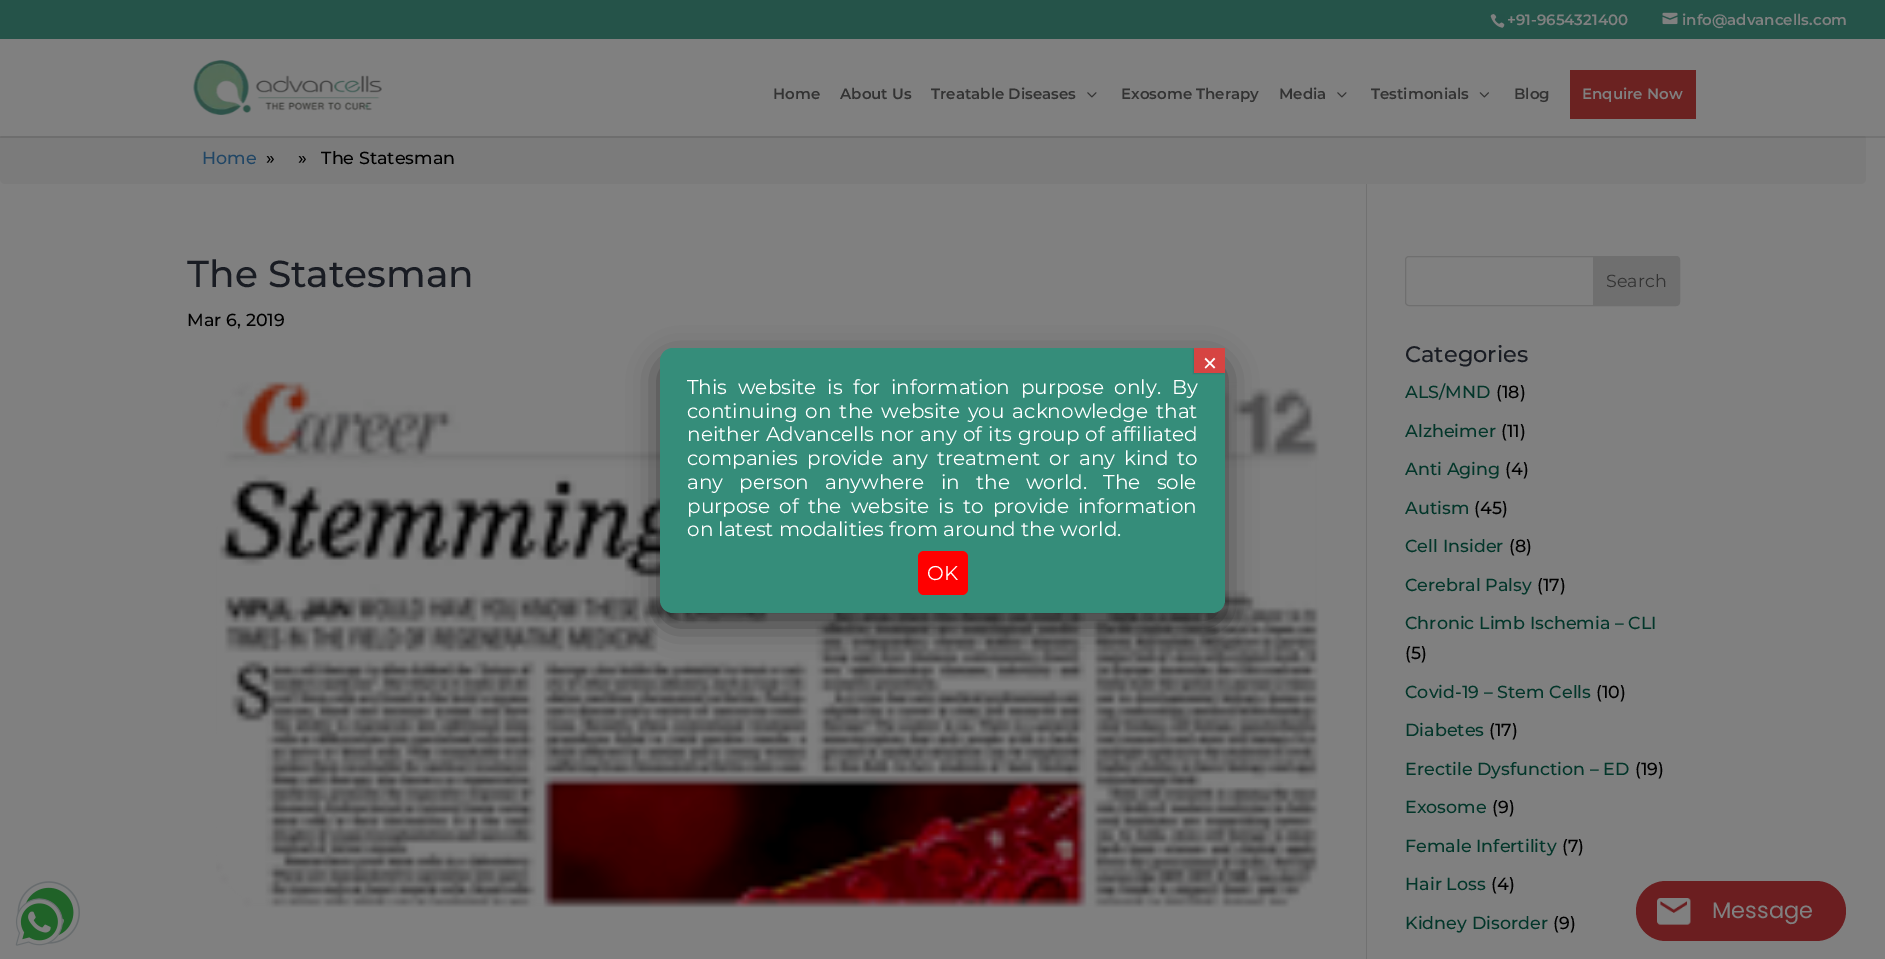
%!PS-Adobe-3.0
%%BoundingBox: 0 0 1885 959
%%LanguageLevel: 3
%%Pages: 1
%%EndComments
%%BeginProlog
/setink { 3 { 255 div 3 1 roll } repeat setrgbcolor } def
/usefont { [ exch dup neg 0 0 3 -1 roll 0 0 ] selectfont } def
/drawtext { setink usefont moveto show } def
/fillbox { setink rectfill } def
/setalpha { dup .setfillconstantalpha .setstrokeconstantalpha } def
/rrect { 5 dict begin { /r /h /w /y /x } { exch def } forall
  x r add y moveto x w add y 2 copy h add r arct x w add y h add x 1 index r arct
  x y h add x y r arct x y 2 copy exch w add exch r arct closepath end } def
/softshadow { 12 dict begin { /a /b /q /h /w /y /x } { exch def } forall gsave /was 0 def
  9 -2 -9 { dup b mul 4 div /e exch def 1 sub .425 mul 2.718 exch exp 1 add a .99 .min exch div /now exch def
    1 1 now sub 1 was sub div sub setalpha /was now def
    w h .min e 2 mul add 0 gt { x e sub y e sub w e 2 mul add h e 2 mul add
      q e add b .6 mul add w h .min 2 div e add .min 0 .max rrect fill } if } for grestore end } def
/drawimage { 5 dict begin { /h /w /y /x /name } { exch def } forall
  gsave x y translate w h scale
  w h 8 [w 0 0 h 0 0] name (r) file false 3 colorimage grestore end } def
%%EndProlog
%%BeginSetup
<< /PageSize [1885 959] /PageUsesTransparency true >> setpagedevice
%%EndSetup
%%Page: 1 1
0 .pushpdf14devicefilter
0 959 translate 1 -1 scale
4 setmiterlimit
0 0 1885 959 128 128 128 fillbox
0 0 1885 39 37 83 73 fillbox
(assets/img1.rgb) 1490 14 15 14 drawimage
(+91-9654321400) 1507 25 /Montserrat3-Thin 15 128 128 128 drawtext
(assets/img2.rgb) 1662 12 16 13 drawimage
(info@advancells.com) 1682 25 /Montserrat3-Thin 15 128 128 128 drawtext
123 123 123 setink
0 134 1866 50 5 rrect fill
0.1 setalpha
0 136 1885 2 0 0 0 fillbox
1 setalpha
1 134 1864 2 128 128 128 fillbox
(assets/img3.rgb) 193 60 189 55 drawimage
(Home) 773 99 /Montserrat3-Thin 15 51 51 51 drawtext
(About Us) 840 99 /Montserrat3-Thin 15 51 51 51 drawtext
(Treatable Diseases) 931 99 /Montserrat3-Thin 15 51 51 51 drawtext
(assets/img4.rgb) 1087 92 10 6 drawimage
(Exosome Therapy) 1121 99 /Montserrat3-Thin 15 51 51 51 drawtext
(Media) 1279 99 /Montserrat3-Thin 15 51 51 51 drawtext
(assets/img4.rgb) 1337 92 10 6 drawimage
(Testimonials) 1371 99 /Montserrat3-Thin 15 51 51 51 drawtext
(assets/img5.rgb) 1479 92 10 6 drawimage
(Blog) 1514 99 /Montserrat3-Thin 15 51 51 51 drawtext
1570 70 126 49 107 34 33 fillbox
(Enquire Now) 1582 99 /Montserrat3-Thin 15 128 128 128 drawtext
(Home) 202 164 /Montserrat-Thin 17.5 33 70 101 drawtext
(»     »   The Statesman) 266 164 /Montserrat-Thin 17.5 0 0 0 drawtext
(assets/img6.rgb) 17 881 63 64 drawimage
1366 184 1 775 113 113 113 fillbox
(The Statesman) 187 287 /Montserrat-Thin 37.5 25 28 35 drawtext
(Mar 6, 2019) 187 326 /Montserrat-Thin 17.5 0 0 0 drawtext
(assets/img7.rgb) 216 381 1103 527 drawimage
111 111 111 setink
1405.5 256.5 274 49 3.5 rrect stroke
1593 256 moveto 1676 256 lineto 1678 256 1680 258 1680 260 curveto 1680 302 lineto 1680 304 1678 306 1676 306 curveto 1593 306 lineto closepath fill
(Search) 1606 287 /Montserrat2-Thin 17.5 51 51 51 drawtext
(Categories) 1405 362 /Montserrat-Thin 22.5 25 28 35 drawtext
(ALS/MND) 1405 398 /Montserrat-Thin 17.5 3 54 42 drawtext
(\(18\)) 1496 398 /Montserrat-Thin 17.5 0 0 0 drawtext
(Alzheimer) 1405 437 /Montserrat-Thin 17.5 3 54 42 drawtext
(\(11\)) 1501 437 /Montserrat-Thin 17.5 0 0 0 drawtext
(Anti Aging) 1405 475 /Montserrat-Thin 17.5 3 54 42 drawtext
(\(4\)) 1505 475 /Montserrat-Thin 17.5 0 0 0 drawtext
(Autism) 1405 514 /Montserrat-Thin 17.5 3 54 42 drawtext
(\(45\)) 1474 514 /Montserrat-Thin 17.5 0 0 0 drawtext
(Cell Insider) 1405 552 /Montserrat-Thin 17.5 3 54 42 drawtext
(\(8\)) 1509 552 /Montserrat-Thin 17.5 0 0 0 drawtext
(Cerebral Palsy) 1405 591 /Montserrat-Thin 17.5 3 54 42 drawtext
(\(17\)) 1537 591 /Montserrat-Thin 17.5 0 0 0 drawtext
(Chronic Limb Ischemia – CLI) 1405 629 /Montserrat-Thin 17.5 3 54 42 drawtext
(\(5\)) 1405 659 /Montserrat-Thin 17.5 0 0 0 drawtext
(Covid-19 – Stem Cells) 1405 698 /Montserrat-Thin 17.5 3 54 42 drawtext
(\(10\)) 1596 698 /Montserrat-Thin 17.5 0 0 0 drawtext
(Diabetes) 1405 736 /Montserrat-Thin 17.5 3 54 42 drawtext
(\(17\)) 1489 736 /Montserrat-Thin 17.5 0 0 0 drawtext
(Erectile Dysfunction – ED) 1405 775 /Montserrat-Thin 17.5 3 54 42 drawtext
(\(19\)) 1635 775 /Montserrat-Thin 17.5 0 0 0 drawtext
(Exosome) 1405 813 /Montserrat-Thin 17.5 3 54 42 drawtext
(\(9\)) 1492 813 /Montserrat-Thin 17.5 0 0 0 drawtext
(Female Infertility) 1405 852 /Montserrat-Thin 17.5 3 54 42 drawtext
(\(7\)) 1562 852 /Montserrat-Thin 17.5 0 0 0 drawtext
(Hair Loss) 1405 890 /Montserrat-Thin 17.5 3 54 42 drawtext
(\(4\)) 1491 890 /Montserrat-Thin 17.5 0 0 0 drawtext
(Kidney Disorder) 1405 929 /Montserrat-Thin 17.5 3 54 42 drawtext
(\(9\)) 1553 929 /Montserrat-Thin 17.5 0 0 0 drawtext
2 2 2 setink
660 360 565 265 13 15.5 0.5 softshadow
53 141 122 setink
660 348 565 265 13 rrect fill
2 2 2 setink
1193 349 31 25 0 0.5 0.1 softshadow
1194 348 31 25 214 68 66 fillbox
(×) 1201 374 /Montserrat2-Thin 31 255 255 255 drawtext
/Montserrat2-Thin 20 usefont
687 394 moveto 5.5 0 32 (This website is for information purpose only. By) widthshow
687 418 moveto 2.75 0 32 (continuing on the website you acknowledge that) widthshow
687 441 moveto 1 0 32 (neither Advancells nor any of its group of affiliated) widthshow
687 465 moveto 3.75 0 32 (companies provide any treatment or any kind to) widthshow
687 489 moveto 11 0 32 (any person anywhere in the world. The sole) widthshow
687 513 moveto 4 0 32 (purpose of the website is to provide information) widthshow
(on latest modalities from around the world.) 687 536 /Montserrat2-Thin 20 255 255 255 drawtext
255 0 0 setink
918 551 50 44 6 rrect fill
(OK) 927 580 /Montserrat2-Thin 20 255 255 255 drawtext
(assets/img8.rgb) 15 898 48 48 drawimage
107 30 32 setink
1636 881 210 60 30 rrect fill
(assets/img9.rgb) 1657 898 34 27 drawimage
(Message) 1712 918 /Poppins-Regular 22.5 128 128 128 drawtext
.poppdf14devicefilter showpage
%%EOF
